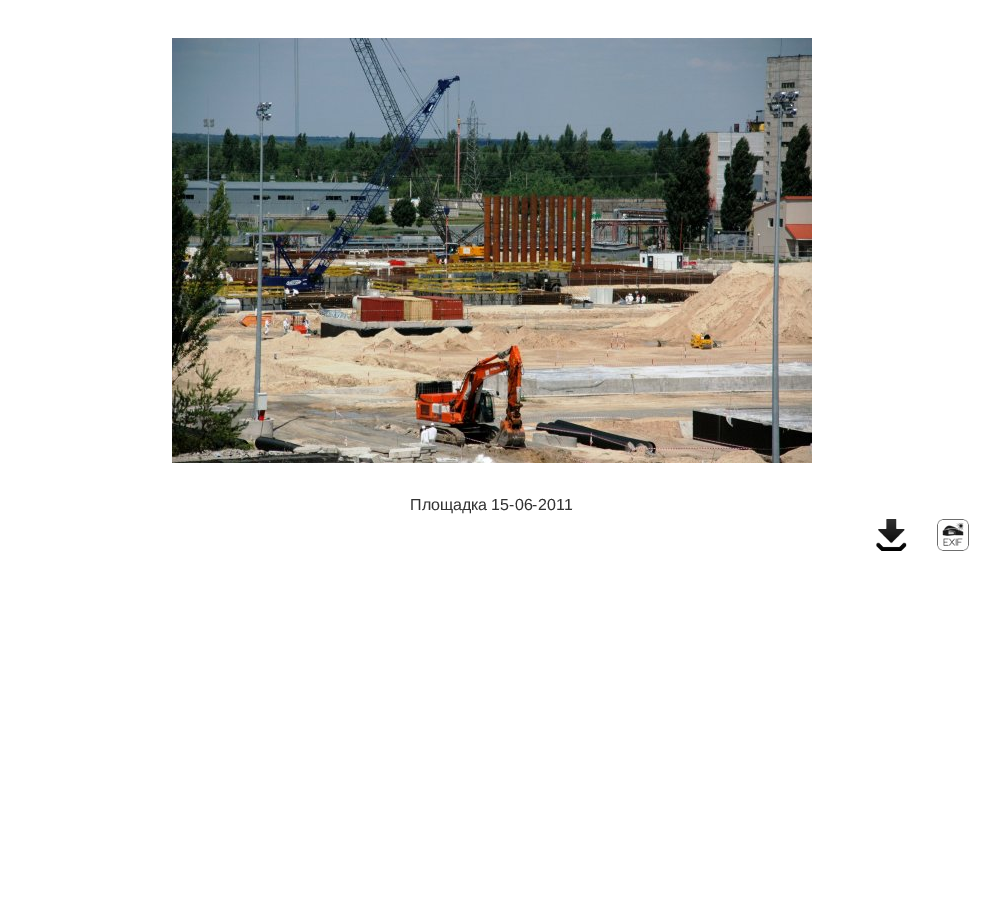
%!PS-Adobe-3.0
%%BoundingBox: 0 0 984 909
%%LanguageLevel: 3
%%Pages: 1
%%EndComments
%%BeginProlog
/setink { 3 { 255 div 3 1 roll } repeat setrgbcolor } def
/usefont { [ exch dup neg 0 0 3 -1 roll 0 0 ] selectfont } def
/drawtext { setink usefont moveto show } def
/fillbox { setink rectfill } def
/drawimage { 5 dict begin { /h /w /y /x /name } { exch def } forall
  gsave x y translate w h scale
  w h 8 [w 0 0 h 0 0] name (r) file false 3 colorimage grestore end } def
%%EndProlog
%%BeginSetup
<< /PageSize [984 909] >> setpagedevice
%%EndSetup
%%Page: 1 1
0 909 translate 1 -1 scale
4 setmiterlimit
0 0 984 909 255 255 255 fillbox
(assets/img1.rgb) 172 38 640 425 drawimage
(Площадка 15-06-2011) 410 510 /LiberationSans-Regular 16 51 51 51 drawtext
(assets/img2.rgb) 876 519 31 32 drawimage
(assets/img3.rgb) 937 519 32 32 drawimage
showpage
%%EOF
